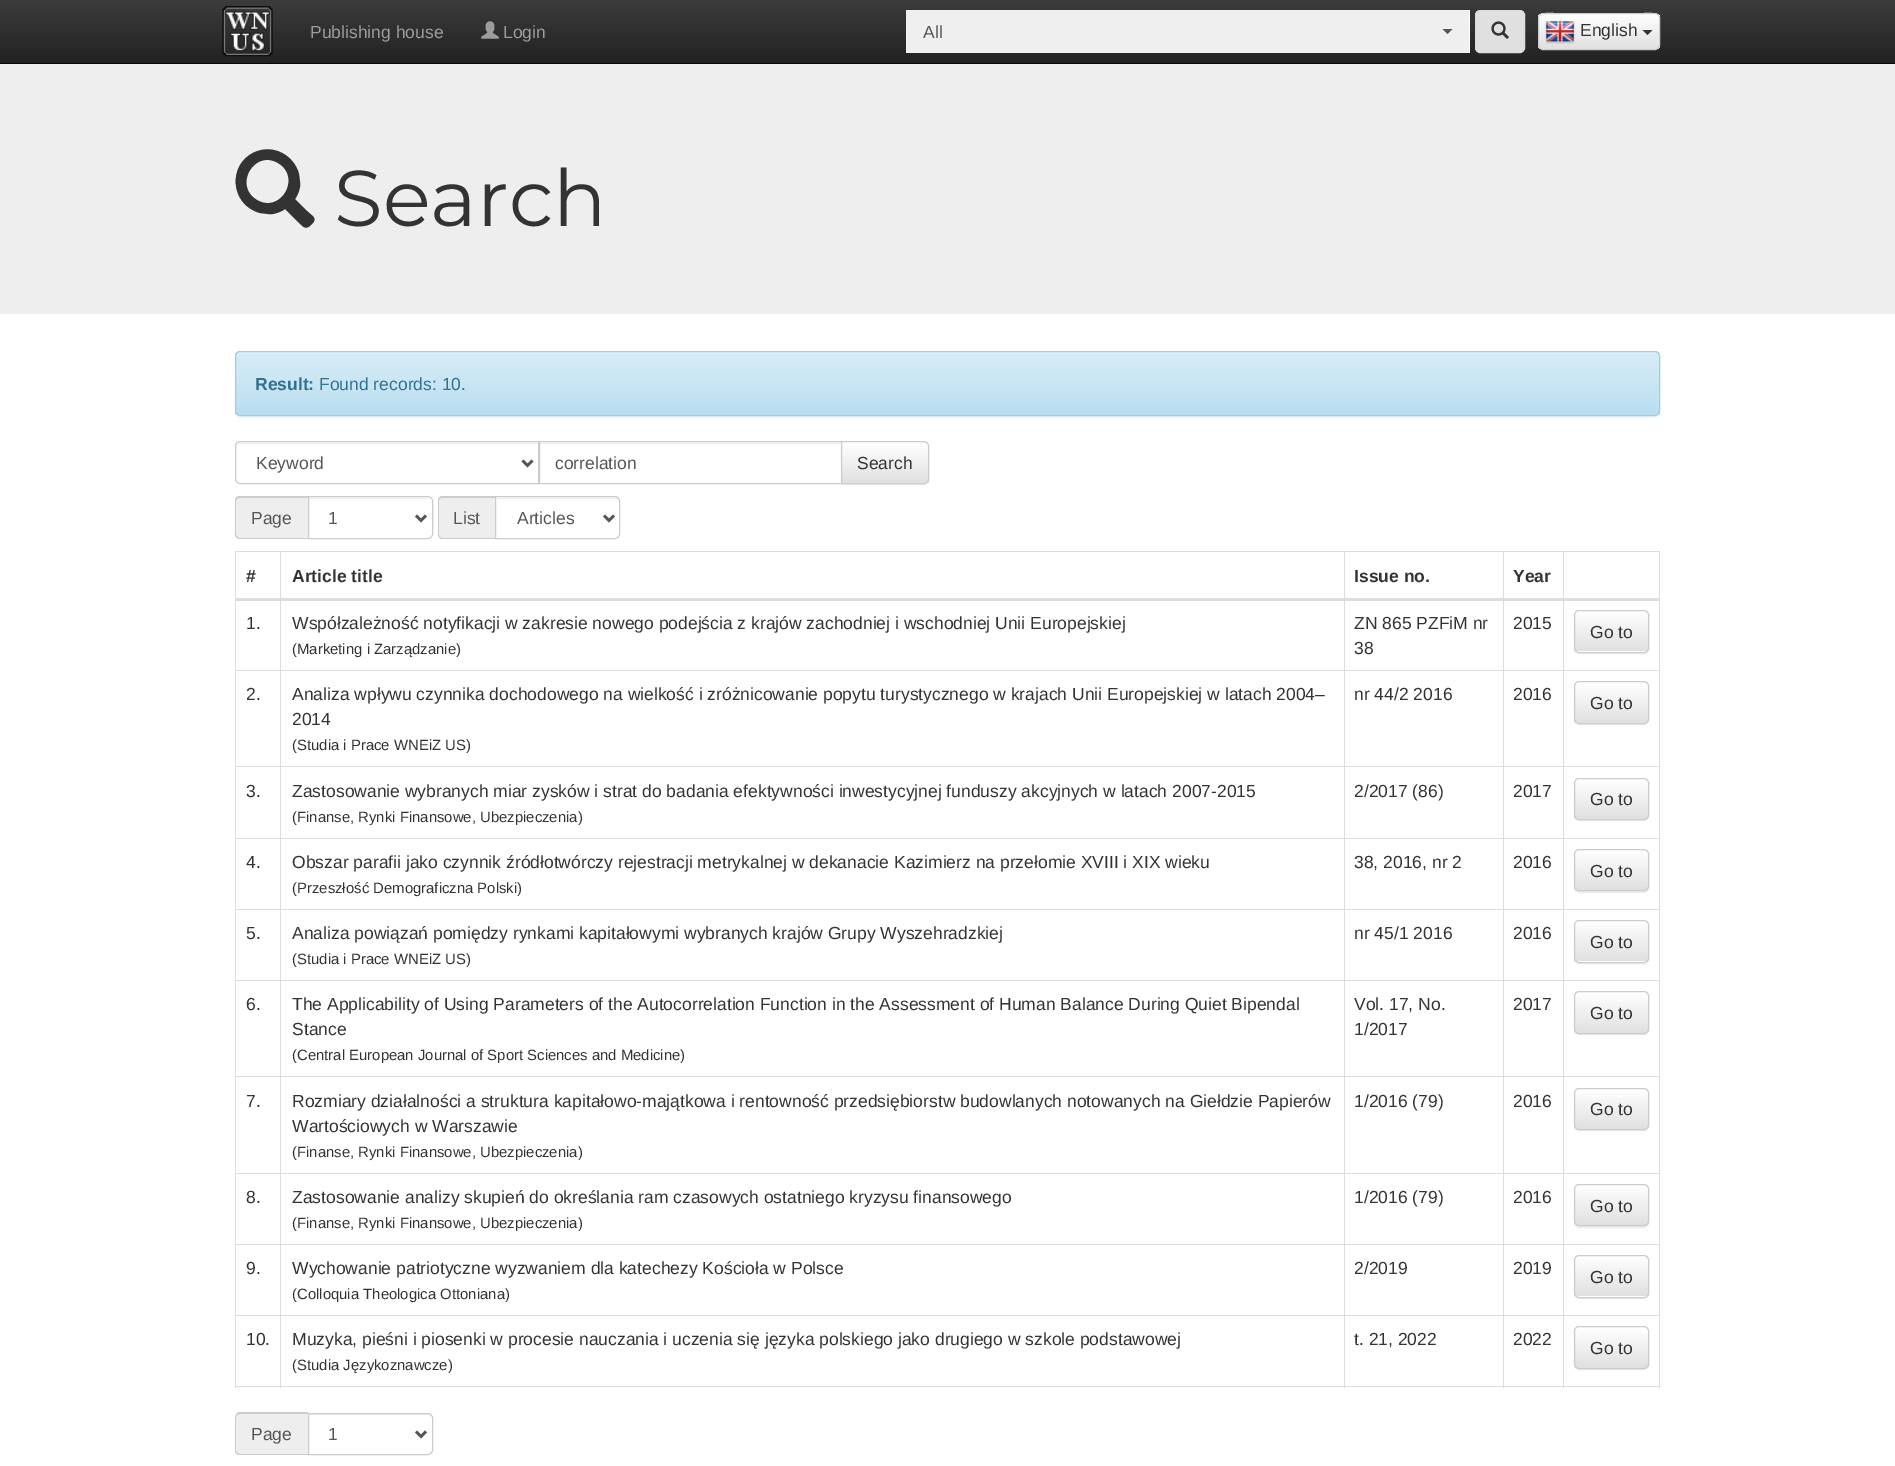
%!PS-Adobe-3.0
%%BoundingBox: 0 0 1895 1466
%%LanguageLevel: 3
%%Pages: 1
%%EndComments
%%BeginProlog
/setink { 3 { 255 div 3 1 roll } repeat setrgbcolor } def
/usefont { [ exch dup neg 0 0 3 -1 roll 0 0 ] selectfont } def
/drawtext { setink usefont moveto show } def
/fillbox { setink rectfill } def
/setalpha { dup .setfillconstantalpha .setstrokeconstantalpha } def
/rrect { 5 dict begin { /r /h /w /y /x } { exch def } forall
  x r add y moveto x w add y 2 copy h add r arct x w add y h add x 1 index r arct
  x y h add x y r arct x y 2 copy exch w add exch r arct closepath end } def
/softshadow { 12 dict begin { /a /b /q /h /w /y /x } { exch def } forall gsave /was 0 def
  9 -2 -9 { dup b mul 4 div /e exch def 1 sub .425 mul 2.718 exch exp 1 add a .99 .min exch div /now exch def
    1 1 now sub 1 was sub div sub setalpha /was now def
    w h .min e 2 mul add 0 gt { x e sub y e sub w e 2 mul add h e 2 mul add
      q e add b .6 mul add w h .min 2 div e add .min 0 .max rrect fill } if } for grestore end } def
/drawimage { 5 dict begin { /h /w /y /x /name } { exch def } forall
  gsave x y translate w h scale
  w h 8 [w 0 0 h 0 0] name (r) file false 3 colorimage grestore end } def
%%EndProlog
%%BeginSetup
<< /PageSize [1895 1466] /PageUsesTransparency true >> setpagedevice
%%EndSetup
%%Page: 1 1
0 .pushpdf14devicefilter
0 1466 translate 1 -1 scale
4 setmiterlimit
0 0 1895 1466 255 255 255 fillbox
gsave 0 0 moveto 1895 0 lineto 1895 63 lineto 0 63 lineto closepath clip newpath
<< /ShadingType 2 /ColorSpace /DeviceRGB /Coords [948 0 948 63] /Extend [true true] /Function << /FunctionType 2 /Domain [0 1] /C0 [0.235 0.235 0.235] /C1 [0.133 0.133 0.133] /N 1 >> >> shfill grestore
0 63 1895 1 8 8 8 fillbox
(assets/img1.rgb) 222 6 51 51 drawimage
(Publishing house) 310 38 /LiberationSans-Regular 17.5 157 157 157 drawtext
(assets/img2.rgb) 481 21 18 18 drawimage
(Login) 503 38 /LiberationSans-Regular 17.5 157 157 157 drawtext
1469 11 1 42 255 255 255 fillbox
1469 10 1 1 236 236 236 fillbox
906 10 563 43 239 239 239 fillbox
(All) 923 38 /LiberationSans-Regular 17.5 85 85 85 drawtext
1442.5 29 moveto 1452.5 29 lineto 1447.5 34 lineto closepath fill
224 224 224 setink
1475.5 10.5 49 42 4.5 rrect gsave fill grestore
219 219 219 setink
stroke
(assets/img3.rgb) 1491 21 18 18 drawimage
gsave
1538 13 122 37 5 rrect clip newpath
gsave 1538 14 moveto 1660 14 lineto 1660 49 lineto 1538 49 lineto closepath clip newpath
<< /ShadingType 2 /ColorSpace /DeviceRGB /Coords [1599 14 1599 49] /Extend [true true] /Function << /FunctionType 2 /Domain [0 1] /C0 [1 1 1] /C1 [0.878 0.878 0.878] /N 1 >> >> shfill grestore
grestore
255 255 255 setink
1542 15 moveto 1655 15 lineto 1657 15 1659 17 1659 19 curveto 1659 9 1639 14 1636 14 curveto 1562 14 lineto 1559 14 1539 9 1539 19 curveto 1539 17 1540 15 1542 15 curveto closepath fill
204 204 204 setink
1538.5 13.5 121 36 4.5 rrect stroke
(assets/img4.rgb) 1545 21 30 23 drawimage
(English) 1580 36 /LiberationSans-Regular 17.5 51 51 51 drawtext
1642.5 30 moveto 1652.5 30 lineto 1647.5 35 lineto closepath fill
0 64 1895 250 238 238 238 fillbox
51 51 51 setink
255 152 moveto 273 144 294 155 299 174 curveto 300 182 lineto 301 187 298 195 295 199 curveto 307 211 lineto 312 216 318 218 312 224 curveto 305 231 304 227 297 221 curveto 285 209 lineto 281 212 273 215 268 214 curveto 260 213 lineto 230 205 227 164 255 152 curveto closepath 278 163 moveto 254 149 233 186 257 200 curveto 281 214 302 177 278 163 curveto closepath fill
(Search) 334 226 /Montserrat-Regular 79 51 51 51 drawtext
0 0 0 setink
235 353 1425 65 5 1 0.05 softshadow
217 237 247 setink
235 351 1425 65 5 rrect fill
gsave
235 351 1425 65 5 rrect clip newpath
gsave 235 353 moveto 1660 353 lineto 1660 415 lineto 235 415 lineto closepath clip newpath
<< /ShadingType 2 /ColorSpace /DeviceRGB /Coords [948 352 948 415] /Extend [true true] /Function << /FunctionType 2 /Domain [0 1] /C0 [0.851 0.929 0.969] /C1 [0.725 0.871 0.941] /N 1 >> >> shfill grestore
grestore
226 241 249 setink
240 354 moveto 1655 354 lineto 1657 354 1659 355 1659 358 curveto 1659 357 lineto 1659 355 1657 353 1655 353 curveto 240 353 lineto 238 353 236 355 236 357 curveto 236 358 lineto 236 355 238 354 240 354 curveto closepath fill
154 207 234 setink
235.5 351.5 1424 64 4.5 rrect stroke
(Result:) 255 390 /LiberationSans-Bold 17.5 49 112 143 drawtext
(Found records: 10.) 319 390 /LiberationSans-Regular 17.5 49 112 143 drawtext
236 236 236 setink
240 444 moveto 538 444 lineto 538 443 lineto 240 443 lineto 238 443 236 445 236 447 curveto 236 448 lineto 236 445 238 444 240 444 curveto closepath fill
204 204 204 setink
240 441.5 moveto 538.5 441.5 lineto 538.5 483.5 lineto 240 483.5 lineto 237.5 483.5 235.5 481.5 235.5 479 curveto 235.5 446 lineto 235.5 443.5 237.5 441.5 240 441.5 curveto closepath stroke
85 85 85 setink
2.5 setlinewidth
522.5 460.5 moveto 527.5 465.5 lineto 532.5 460.5 lineto stroke
(Keyword) 256 469 /LiberationSans-Regular 17.5 85 85 85 drawtext
540 443 301 1 236 236 236 fillbox
204 204 204 setink
1 setlinewidth
539.5 441.5 303 42 rectstroke
(correlation) 555 469 /LiberationSans-Regular 17.5 85 85 85 drawtext
0 0 0 setink
841 443 88 42 5 0.5 0.07 softshadow
255 255 255 setink
841 441 moveto 924 441 lineto 927 441 929 443 929 446 curveto 929 479 lineto 929 482 927 484 924 484 curveto 841 484 lineto closepath fill
gsave
841 441 moveto 924 441 lineto 927 441 929 443 929 446 curveto 929 479 lineto 929 482 927 484 924 484 curveto 841 484 lineto closepath clip newpath
gsave 842 443 moveto 929 443 lineto 929 483 lineto 842 483 lineto closepath clip newpath
<< /ShadingType 2 /ColorSpace /DeviceRGB /Coords [885 443 885 483] /Extend [true true] /Function << /FunctionType 2 /Domain [0 1] /C0 [1 1 1] /C1 [0.878 0.878 0.878] /N 1 >> >> shfill grestore
grestore
204 204 204 setink
841.5 441.5 moveto 924 441.5 lineto 926.5 441.5 928.5 443.5 928.5 446 curveto 928.5 479 lineto 928.5 481.5 926.5 483.5 924 483.5 curveto 841.5 483.5 lineto closepath stroke
(Search) 857 469 /LiberationSans-Regular 17.5 51 51 51 drawtext
238 238 238 setink
240 496 moveto 308 496 lineto 308 539 lineto 240 539 lineto 237 539 235 537 235 534 curveto 235 501 lineto 235 498 237 496 240 496 curveto closepath fill
204 204 204 setink
240 496 moveto 308 496 lineto 308 539 lineto 240 539 lineto 237 539 235 537 235 534 curveto 235 501 lineto 235 498 237 496 240 496 curveto closepath 240 498 moveto 308 498 lineto 308 538 lineto 240 538 lineto 238 538 236 536 236 534 curveto 236 501 lineto 236 499 238 498 240 498 curveto closepath eofill
(Page) 251 524 /LiberationSans-Regular 17.5 85 85 85 drawtext
236 236 236 setink
309 499 moveto 429 499 lineto 430 500 lineto 430 499 428 498 427 498 curveto 309 498 lineto closepath fill
204 204 204 setink
308.5 496.5 moveto 428 496.5 lineto 430.5 496.5 432.5 498.5 432.5 501 curveto 432.5 534 lineto 432.5 536.5 430.5 538.5 428 538.5 curveto 308.5 538.5 lineto closepath stroke
85 85 85 setink
2.5 setlinewidth
416 515.5 moveto 421 520.5 lineto 426 515.5 lineto stroke
(1) 328 524 /LiberationSans-Regular 17.5 85 85 85 drawtext
238 238 238 setink
443 496 moveto 495 496 lineto 495 539 lineto 443 539 lineto 440 539 438 537 438 534 curveto 438 501 lineto 438 498 440 496 443 496 curveto closepath fill
204 204 204 setink
442 496 moveto 495 496 lineto 495 539 lineto 442 539 lineto 440 539 438 537 438 534 curveto 438 501 lineto 438 498 440 496 442 496 curveto closepath 442 498 moveto 495 498 lineto 495 538 lineto 442 538 lineto 440 538 439 536 439 534 curveto 439 501 lineto 439 499 440 498 442 498 curveto closepath eofill
(List) 453 524 /LiberationSans-Regular 17.5 85 85 85 drawtext
236 236 236 setink
496 499 moveto 615 499 lineto 617 499 619 500 619 502 curveto 619 500 617 498 615 498 curveto 496 498 lineto closepath fill
204 204 204 setink
1 setlinewidth
495.5 496.5 moveto 615 496.5 lineto 617.5 496.5 619.5 498.5 619.5 501 curveto 619.5 534 lineto 619.5 536.5 617.5 538.5 615 538.5 curveto 495.5 538.5 lineto closepath stroke
85 85 85 setink
2.5 setlinewidth
604 515.5 moveto 609 520.5 lineto 614 515.5 lineto stroke
(Articles) 517 524 /LiberationSans-Regular 17.5 85 85 85 drawtext
235 551 1425 1 221 221 221 fillbox
1659 551 1 837 221 221 221 fillbox
235 1386 1425 1 221 221 221 fillbox
235 551 1 837 221 221 221 fillbox
(#) 246 582 /LiberationSans-Bold 17.5 51 51 51 drawtext
(Article title) 292 582 /LiberationSans-Bold 17.5 51 51 51 drawtext
(Issue no.) 1354 582 /LiberationSans-Bold 17.5 51 51 51 drawtext
(Year) 1513 582 /LiberationSans-Bold 17.5 51 51 51 drawtext
1563 670 97 1 221 221 221 fillbox
1563 766 97 1 221 221 221 fillbox
1563 838 97 1 221 221 221 fillbox
1563 909 97 1 221 221 221 fillbox
1563 980 97 1 221 221 221 fillbox
1563 1076 97 1 221 221 221 fillbox
1563 1173 97 1 221 221 221 fillbox
1563 1244 97 1 221 221 221 fillbox
1563 1315 97 1 221 221 221 fillbox
1563 1315 1 73 221 221 221 fillbox
1503 1315 61 1 221 221 221 fillbox
1563 1244 1 72 221 221 221 fillbox
1503 1244 61 1 221 221 221 fillbox
1563 1173 1 72 221 221 221 fillbox
1503 1173 61 1 221 221 221 fillbox
1563 1076 1 98 221 221 221 fillbox
1503 1076 61 1 221 221 221 fillbox
1563 980 1 98 221 221 221 fillbox
1503 980 61 1 221 221 221 fillbox
1563 909 1 72 221 221 221 fillbox
1503 909 61 1 221 221 221 fillbox
1563 838 1 72 221 221 221 fillbox
1503 838 61 1 221 221 221 fillbox
1563 766 1 73 221 221 221 fillbox
1503 766 61 1 221 221 221 fillbox
1563 670 1 98 221 221 221 fillbox
1503 670 61 1 221 221 221 fillbox
1503 1315 1 73 221 221 221 fillbox
1344 1315 160 1 221 221 221 fillbox
1503 1244 1 72 221 221 221 fillbox
1344 1244 160 1 221 221 221 fillbox
1503 1173 1 72 221 221 221 fillbox
1344 1173 160 1 221 221 221 fillbox
1503 1076 1 98 221 221 221 fillbox
1344 1076 160 1 221 221 221 fillbox
1503 980 1 98 221 221 221 fillbox
1344 980 160 1 221 221 221 fillbox
1503 909 1 72 221 221 221 fillbox
1344 909 160 1 221 221 221 fillbox
1503 838 1 72 221 221 221 fillbox
1344 838 160 1 221 221 221 fillbox
1503 766 1 73 221 221 221 fillbox
1344 766 160 1 221 221 221 fillbox
1503 670 1 98 221 221 221 fillbox
1344 670 160 1 221 221 221 fillbox
1344 1315 1 73 221 221 221 fillbox
280 1315 1065 1 221 221 221 fillbox
1344 1244 1 72 221 221 221 fillbox
280 1244 1065 1 221 221 221 fillbox
1344 1173 1 72 221 221 221 fillbox
280 1173 1065 1 221 221 221 fillbox
1344 1076 1 98 221 221 221 fillbox
280 1076 1065 1 221 221 221 fillbox
1344 980 1 98 221 221 221 fillbox
280 980 1065 1 221 221 221 fillbox
1344 909 1 72 221 221 221 fillbox
280 909 1065 1 221 221 221 fillbox
1344 838 1 72 221 221 221 fillbox
280 838 1065 1 221 221 221 fillbox
1344 766 1 73 221 221 221 fillbox
280 766 1065 1 221 221 221 fillbox
1344 670 1 98 221 221 221 fillbox
280 670 1065 1 221 221 221 fillbox
280 1315 1 73 221 221 221 fillbox
235 1315 46 1 221 221 221 fillbox
280 1244 1 72 221 221 221 fillbox
235 1244 46 1 221 221 221 fillbox
280 1173 1 72 221 221 221 fillbox
235 1173 46 1 221 221 221 fillbox
280 1076 1 98 221 221 221 fillbox
235 1076 46 1 221 221 221 fillbox
280 980 1 98 221 221 221 fillbox
235 980 46 1 221 221 221 fillbox
280 909 1 72 221 221 221 fillbox
235 909 46 1 221 221 221 fillbox
280 838 1 72 221 221 221 fillbox
235 838 46 1 221 221 221 fillbox
280 766 1 73 221 221 221 fillbox
235 766 46 1 221 221 221 fillbox
280 670 1 98 221 221 221 fillbox
235 670 46 1 221 221 221 fillbox
280 551 1 120 221 221 221 fillbox
1344 551 1 120 221 221 221 fillbox
1503 551 1 120 221 221 221 fillbox
1563 551 1 120 221 221 221 fillbox
235 598 1425 3 221 221 221 fillbox
(1.) 246 629 /LiberationSans-Regular 17.5 51 51 51 drawtext
(Współzależność notyfikacji w zakresie nowego podejścia z krajów zachodniej i wschodniej Unii Europejskiej) 292 629 /LiberationSans-Regular 17.5 51 51 51 drawtext
(\(Marketing i Zarządzanie\)) 292 654 /LiberationSans-Regular 14.9 51 51 51 drawtext
(ZN 865 PZFiM nr) 1354 629 /LiberationSans-Regular 17.5 51 51 51 drawtext
(38) 1354 654 /LiberationSans-Regular 17.5 51 51 51 drawtext
(2015) 1513 629 /LiberationSans-Regular 17.5 51 51 51 drawtext
0 0 0 setink
1574 611 75 43 5 0.5 0.07 softshadow
255 255 255 setink
1574 610 75 43 5 rrect fill
gsave
1574 610 75 43 5 rrect clip newpath
gsave 1574 611 moveto 1649 611 lineto 1649 651 lineto 1574 651 lineto closepath clip newpath
<< /ShadingType 2 /ColorSpace /DeviceRGB /Coords [1611 611 1611 651] /Extend [true true] /Function << /FunctionType 2 /Domain [0 1] /C0 [1 1 1] /C1 [0.878 0.878 0.878] /N 1 >> >> shfill grestore
grestore
204 204 204 setink
1 setlinewidth
1574.5 610.5 74 42 4.5 rrect stroke
(Go to) 1590 638 /LiberationSans-Regular 17.5 51 51 51 drawtext
(2.) 246 700 /LiberationSans-Regular 17.5 51 51 51 drawtext
(Analiza wpływu czynnika dochodowego na wielkość i zróżnicowanie popytu turystycznego w krajach Unii Europejskiej w latach 2004–) 292 700 /LiberationSans-Regular 17.5 51 51 51 drawtext
(2014) 292 725 /LiberationSans-Regular 17.5 51 51 51 drawtext
(\(Studia i Prace WNEiZ US\)) 292 750 /LiberationSans-Regular 14.9 51 51 51 drawtext
(nr 44/2 2016) 1354 700 /LiberationSans-Regular 17.5 51 51 51 drawtext
(2016) 1513 700 /LiberationSans-Regular 17.5 51 51 51 drawtext
0 0 0 setink
1574 683 75 42 5 0.5 0.07 softshadow
255 255 255 setink
1574 681 75 43 5 rrect fill
gsave
1574 681 75 43 5 rrect clip newpath
gsave 1574 683 moveto 1649 683 lineto 1649 723 lineto 1574 723 lineto closepath clip newpath
<< /ShadingType 2 /ColorSpace /DeviceRGB /Coords [1611 683 1611 723] /Extend [true true] /Function << /FunctionType 2 /Domain [0 1] /C0 [1 1 1] /C1 [0.878 0.878 0.878] /N 1 >> >> shfill grestore
grestore
204 204 204 setink
1574.5 681.5 74 42 4.5 rrect stroke
(Go to) 1590 709 /LiberationSans-Regular 17.5 51 51 51 drawtext
(3.) 246 797 /LiberationSans-Regular 17.5 51 51 51 drawtext
(Zastosowanie wybranych miar zysków i strat do badania efektywności inwestycyjnej funduszy akcyjnych w latach 2007-2015) 292 797 /LiberationSans-Regular 17.5 51 51 51 drawtext
(\(Finanse, Rynki Finansowe, Ubezpieczenia\)) 292 822 /LiberationSans-Regular 14.9 51 51 51 drawtext
(2/2017 \(86\)) 1354 797 /LiberationSans-Regular 17.5 51 51 51 drawtext
(2017) 1513 797 /LiberationSans-Regular 17.5 51 51 51 drawtext
0 0 0 setink
1574 779 75 42 5 0.5 0.07 softshadow
gsave
1574 778 75 42 5 rrect clip newpath
gsave 1574 779 moveto 1649 779 lineto 1649 819 lineto 1574 819 lineto closepath clip newpath
<< /ShadingType 2 /ColorSpace /DeviceRGB /Coords [1611 779 1611 819] /Extend [true true] /Function << /FunctionType 2 /Domain [0 1] /C0 [1 1 1] /C1 [0.878 0.878 0.878] /N 1 >> >> shfill grestore
grestore
204 204 204 setink
1574.5 778.5 74 41 4.5 rrect stroke
(Go to) 1590 805 /LiberationSans-Regular 17.5 51 51 51 drawtext
(4.) 246 868 /LiberationSans-Regular 17.5 51 51 51 drawtext
(Obszar parafii jako czynnik źródłotwórczy rejestracji metrykalnej w dekanacie Kazimierz na przełomie XVIII i XIX wieku) 292 868 /LiberationSans-Regular 17.5 51 51 51 drawtext
(\(Przeszłość Demograficzna Polski\)) 292 893 /LiberationSans-Regular 14.9 51 51 51 drawtext
(38, 2016, nr 2) 1354 868 /LiberationSans-Regular 17.5 51 51 51 drawtext
(2016) 1513 868 /LiberationSans-Regular 17.5 51 51 51 drawtext
0 0 0 setink
1574 850 75 43 5 0.5 0.07 softshadow
gsave
1574 849 75 42 5 rrect clip newpath
gsave 1574 850 moveto 1649 850 lineto 1649 890 lineto 1574 890 lineto closepath clip newpath
<< /ShadingType 2 /ColorSpace /DeviceRGB /Coords [1611 850 1611 890] /Extend [true true] /Function << /FunctionType 2 /Domain [0 1] /C0 [1 1 1] /C1 [0.878 0.878 0.878] /N 1 >> >> shfill grestore
grestore
204 204 204 setink
1574.5 849.5 74 41 4.5 rrect stroke
(Go to) 1590 877 /LiberationSans-Regular 17.5 51 51 51 drawtext
(5.) 246 939 /LiberationSans-Regular 17.5 51 51 51 drawtext
(Analiza powiązań pomiędzy rynkami kapitałowymi wybranych krajów Grupy Wyszehradzkiej) 292 939 /LiberationSans-Regular 17.5 51 51 51 drawtext
(\(Studia i Prace WNEiZ US\)) 292 964 /LiberationSans-Regular 14.9 51 51 51 drawtext
(nr 45/1 2016) 1354 939 /LiberationSans-Regular 17.5 51 51 51 drawtext
(2016) 1513 939 /LiberationSans-Regular 17.5 51 51 51 drawtext
0 0 0 setink
1574 921 75 43 5 0.5 0.07 softshadow
255 255 255 setink
1574 920 75 43 5 rrect fill
gsave
1574 920 75 43 5 rrect clip newpath
gsave 1574 921 moveto 1649 921 lineto 1649 961 lineto 1574 961 lineto closepath clip newpath
<< /ShadingType 2 /ColorSpace /DeviceRGB /Coords [1611 921 1611 961] /Extend [true true] /Function << /FunctionType 2 /Domain [0 1] /C0 [1 1 1] /C1 [0.878 0.878 0.878] /N 1 >> >> shfill grestore
grestore
204 204 204 setink
1574.5 920.5 74 42 4.5 rrect stroke
(Go to) 1590 948 /LiberationSans-Regular 17.5 51 51 51 drawtext
(6.) 246 1010 /LiberationSans-Regular 17.5 51 51 51 drawtext
(The Applicability of Using Parameters of the Autocorrelation Function in the Assessment of Human Balance During Quiet Bipendal) 292 1010 /LiberationSans-Regular 17.5 51 51 51 drawtext
(Stance) 292 1035 /LiberationSans-Regular 17.5 51 51 51 drawtext
(\(Central European Journal of Sport Sciences and Medicine\)) 292 1060 /LiberationSans-Regular 14.9 51 51 51 drawtext
(Vol. 17, No.) 1354 1010 /LiberationSans-Regular 17.5 51 51 51 drawtext
(1/2017) 1354 1035 /LiberationSans-Regular 17.5 51 51 51 drawtext
(2017) 1513 1010 /LiberationSans-Regular 17.5 51 51 51 drawtext
0 0 0 setink
1574 993 75 42 5 0.5 0.07 softshadow
255 255 255 setink
1574 991 75 43 5 rrect fill
gsave
1574 991 75 43 5 rrect clip newpath
gsave 1574 993 moveto 1649 993 lineto 1649 1033 lineto 1574 1033 lineto closepath clip newpath
<< /ShadingType 2 /ColorSpace /DeviceRGB /Coords [1611 993 1611 1033] /Extend [true true] /Function << /FunctionType 2 /Domain [0 1] /C0 [1 1 1] /C1 [0.878 0.878 0.878] /N 1 >> >> shfill grestore
grestore
204 204 204 setink
1574.5 991.5 74 42 4.5 rrect stroke
(Go to) 1590 1019 /LiberationSans-Regular 17.5 51 51 51 drawtext
(7.) 246 1107 /LiberationSans-Regular 17.5 51 51 51 drawtext
(Rozmiary działalności a struktura kapitałowo-majątkowa i rentowność przedsiębiorstw budowlanych notowanych na Giełdzie Papierów) 292 1107 /LiberationSans-Regular 17.5 51 51 51 drawtext
(Wartościowych w Warszawie) 292 1132 /LiberationSans-Regular 17.5 51 51 51 drawtext
(\(Finanse, Rynki Finansowe, Ubezpieczenia\)) 292 1157 /LiberationSans-Regular 14.9 51 51 51 drawtext
(1/2016 \(79\)) 1354 1107 /LiberationSans-Regular 17.5 51 51 51 drawtext
(2016) 1513 1107 /LiberationSans-Regular 17.5 51 51 51 drawtext
0 0 0 setink
1574 1089 75 42 5 0.5 0.07 softshadow
gsave
1574 1088 75 42 5 rrect clip newpath
gsave 1574 1089 moveto 1649 1089 lineto 1649 1129 lineto 1574 1129 lineto closepath clip newpath
<< /ShadingType 2 /ColorSpace /DeviceRGB /Coords [1611 1089 1611 1129] /Extend [true true] /Function << /FunctionType 2 /Domain [0 1] /C0 [1 1 1] /C1 [0.878 0.878 0.878] /N 1 >> >> shfill grestore
grestore
204 204 204 setink
1574.5 1088.5 74 41 4.5 rrect stroke
(Go to) 1590 1115 /LiberationSans-Regular 17.5 51 51 51 drawtext
(8.) 246 1203 /LiberationSans-Regular 17.5 51 51 51 drawtext
(Zastosowanie analizy skupień do określania ram czasowych ostatniego kryzysu finansowego) 292 1203 /LiberationSans-Regular 17.5 51 51 51 drawtext
(\(Finanse, Rynki Finansowe, Ubezpieczenia\)) 292 1228 /LiberationSans-Regular 14.9 51 51 51 drawtext
(1/2016 \(79\)) 1354 1203 /LiberationSans-Regular 17.5 51 51 51 drawtext
(2016) 1513 1203 /LiberationSans-Regular 17.5 51 51 51 drawtext
0 0 0 setink
1574 1185 75 43 5 0.5 0.07 softshadow
gsave
1574 1184 75 42 5 rrect clip newpath
gsave 1574 1185 moveto 1649 1185 lineto 1649 1225 lineto 1574 1225 lineto closepath clip newpath
<< /ShadingType 2 /ColorSpace /DeviceRGB /Coords [1611 1185 1611 1225] /Extend [true true] /Function << /FunctionType 2 /Domain [0 1] /C0 [1 1 1] /C1 [0.878 0.878 0.878] /N 1 >> >> shfill grestore
grestore
204 204 204 setink
1574.5 1184.5 74 41 4.5 rrect stroke
(Go to) 1590 1212 /LiberationSans-Regular 17.5 51 51 51 drawtext
(9.) 246 1274 /LiberationSans-Regular 17.5 51 51 51 drawtext
(Wychowanie patriotyczne wyzwaniem dla katechezy Kościoła w Polsce) 292 1274 /LiberationSans-Regular 17.5 51 51 51 drawtext
(\(Colloquia Theologica Ottoniana\)) 292 1299 /LiberationSans-Regular 14.9 51 51 51 drawtext
(2/2019) 1354 1274 /LiberationSans-Regular 17.5 51 51 51 drawtext
(2019) 1513 1274 /LiberationSans-Regular 17.5 51 51 51 drawtext
0 0 0 setink
1574 1256 75 43 5 0.5 0.07 softshadow
255 255 255 setink
1574 1255 75 43 5 rrect fill
gsave
1574 1255 75 43 5 rrect clip newpath
gsave 1574 1256 moveto 1649 1256 lineto 1649 1296 lineto 1574 1296 lineto closepath clip newpath
<< /ShadingType 2 /ColorSpace /DeviceRGB /Coords [1611 1256 1611 1296] /Extend [true true] /Function << /FunctionType 2 /Domain [0 1] /C0 [1 1 1] /C1 [0.878 0.878 0.878] /N 1 >> >> shfill grestore
grestore
204 204 204 setink
1574.5 1255.5 74 42 4.5 rrect stroke
(Go to) 1590 1283 /LiberationSans-Regular 17.5 51 51 51 drawtext
(10.) 246 1345 /LiberationSans-Regular 17.5 51 51 51 drawtext
(Muzyka, pieśni i piosenki w procesie nauczania i uczenia się języka polskiego jako drugiego w szkole podstawowej) 292 1345 /LiberationSans-Regular 17.5 51 51 51 drawtext
(\(Studia Językoznawcze\)) 292 1370 /LiberationSans-Regular 14.9 51 51 51 drawtext
(t. 21, 2022) 1354 1345 /LiberationSans-Regular 17.5 51 51 51 drawtext
(2022) 1513 1345 /LiberationSans-Regular 17.5 51 51 51 drawtext
0 0 0 setink
1574 1328 75 42 5 0.5 0.07 softshadow
255 255 255 setink
1574 1326 75 43 5 rrect fill
gsave
1574 1326 75 43 5 rrect clip newpath
gsave 1574 1328 moveto 1649 1328 lineto 1649 1368 lineto 1574 1368 lineto closepath clip newpath
<< /ShadingType 2 /ColorSpace /DeviceRGB /Coords [1611 1328 1611 1368] /Extend [true true] /Function << /FunctionType 2 /Domain [0 1] /C0 [1 1 1] /C1 [0.878 0.878 0.878] /N 1 >> >> shfill grestore
grestore
204 204 204 setink
1574.5 1326.5 74 42 4.5 rrect stroke
(Go to) 1590 1354 /LiberationSans-Regular 17.5 51 51 51 drawtext
238 238 238 setink
240 1413 moveto 308 1413 lineto 308 1455 lineto 240 1455 lineto 237 1455 235 1453 235 1450 curveto 235 1418 lineto 235 1415 237 1413 240 1413 curveto closepath fill
204 204 204 setink
240 1412 moveto 308 1412 lineto 308 1455 lineto 240 1455 lineto 237 1455 235 1453 235 1450 curveto 235 1418 lineto 235 1415 237 1412 240 1412 curveto closepath 240 1414 moveto 308 1414 lineto 308 1454 lineto 240 1454 lineto 238 1454 236 1452 236 1450 curveto 236 1418 lineto 236 1415 238 1414 240 1414 curveto closepath eofill
(Page) 251 1440 /LiberationSans-Regular 17.5 85 85 85 drawtext
236 236 236 setink
309 1415 moveto 428 1415 lineto 430 1415 431 1417 431 1419 curveto 431 1418 lineto 431 1416 429 1414 427 1414 curveto 309 1414 lineto closepath fill
204 204 204 setink
308.5 1413.5 moveto 428 1413.5 lineto 430.5 1413.5 432.5 1415.5 432.5 1418 curveto 432.5 1450 lineto 432.5 1452.5 430.5 1454.5 428 1454.5 curveto 308.5 1454.5 lineto closepath stroke
85 85 85 setink
2.5 setlinewidth
416 1431.5 moveto 421 1436.5 lineto 426 1431.5 lineto stroke
(1) 328 1440 /LiberationSans-Regular 17.5 85 85 85 drawtext
.poppdf14devicefilter showpage
%%EOF
